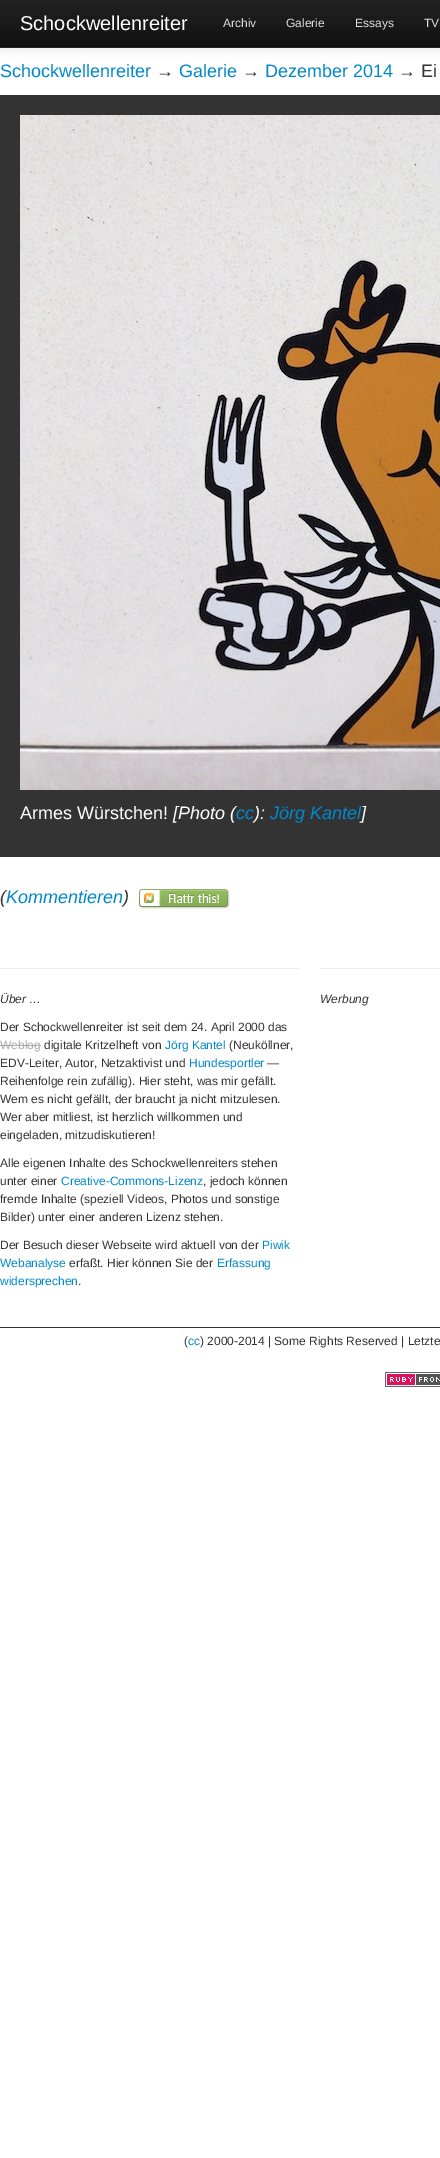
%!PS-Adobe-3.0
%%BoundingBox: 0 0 440 2158
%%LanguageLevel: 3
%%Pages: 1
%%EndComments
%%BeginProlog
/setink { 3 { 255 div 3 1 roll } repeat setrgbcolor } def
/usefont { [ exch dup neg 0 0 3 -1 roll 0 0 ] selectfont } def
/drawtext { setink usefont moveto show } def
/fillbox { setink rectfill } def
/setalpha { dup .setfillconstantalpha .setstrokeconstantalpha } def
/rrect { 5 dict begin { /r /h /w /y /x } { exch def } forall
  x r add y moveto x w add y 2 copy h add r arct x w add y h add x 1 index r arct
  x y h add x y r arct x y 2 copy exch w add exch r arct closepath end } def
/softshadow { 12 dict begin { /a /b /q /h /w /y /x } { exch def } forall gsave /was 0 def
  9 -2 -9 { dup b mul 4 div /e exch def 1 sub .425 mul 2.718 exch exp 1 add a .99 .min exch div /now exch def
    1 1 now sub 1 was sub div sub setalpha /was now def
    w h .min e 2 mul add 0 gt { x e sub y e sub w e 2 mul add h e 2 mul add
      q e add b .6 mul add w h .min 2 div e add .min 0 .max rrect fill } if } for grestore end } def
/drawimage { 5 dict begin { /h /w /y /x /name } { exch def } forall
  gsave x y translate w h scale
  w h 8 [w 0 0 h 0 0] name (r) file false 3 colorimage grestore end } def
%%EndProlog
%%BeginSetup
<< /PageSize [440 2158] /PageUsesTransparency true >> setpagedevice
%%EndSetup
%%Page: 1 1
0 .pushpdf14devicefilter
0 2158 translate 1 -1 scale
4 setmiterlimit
0 0 440 2158 255 255 255 fillbox
0 0 0 setink
0 1 440 48 0 5 0.1 softshadow
gsave 0 0 moveto 440 0 lineto 440 46 lineto 0 46 lineto closepath clip newpath
<< /ShadingType 2 /ColorSpace /DeviceRGB /Coords [220 0 220 47] /Extend [true true] /Function << /FunctionType 2 /Domain [0 1] /C0 [0.133 0.133 0.133] /C1 [0.067 0.067 0.067] /N 1 >> >> shfill grestore
0 46 440 1 15 15 15 fillbox
0 47 440 1 37 37 37 fillbox
(Schockwellenreiter) 20 30 /LiberationSans-Regular 20 255 255 255 drawtext
(Archiv) 223 27 /LiberationSans-Regular 12 221 221 221 drawtext
(Galerie) 286 27 /LiberationSans-Regular 12 221 221 221 drawtext
(Essays) 355 27 /LiberationSans-Regular 12 221 221 221 drawtext
(TV) 424 27 /LiberationSans-Regular 12 221 221 221 drawtext
(Schockwellenreiter) 0 77 /LiberationSans-Regular 18 0 136 204 drawtext
(→) 156 77 /LiberationSans-Regular 18 51 51 51 drawtext
(Galerie) 179 77 /LiberationSans-Regular 18 0 136 204 drawtext
(→) 242 77 /LiberationSans-Regular 18 51 51 51 drawtext
(Dezember 2014) 265 77 /LiberationSans-Regular 18 0 136 204 drawtext
(→ Ei) 398 77 /LiberationSans-Regular 18 51 51 51 drawtext
0 95 440 762 51 51 51 fillbox
(assets/img1.rgb) 20 115 420 675 drawimage
(Armes Würstchen!) 20 819 /LiberationSans-Regular 18 255 255 255 drawtext
([Photo \() 173 819 /LiberationSans-Italic 18 255 255 255 drawtext
(cc) 236 819 /LiberationSans-Italic 18 0 136 204 drawtext
(\):) 254 819 /LiberationSans-Italic 18 255 255 255 drawtext
(Jörg Kantel) 270 819 /LiberationSans-Italic 18 0 136 204 drawtext
(]) 361 819 /LiberationSans-Italic 18 255 255 255 drawtext
(\() 0 903 /LiberationSans-Italic 18 51 51 51 drawtext
(Kommentieren) 6 903 /LiberationSans-Italic 18 0 136 204 drawtext
(\)) 123 903 /LiberationSans-Italic 18 51 51 51 drawtext
(assets/img2.rgb) 139 889 91 20 drawimage
0 968 300 1 238 238 238 fillbox
(Über …) 0 1003 /LiberationSans-Italic 12 51 51 51 drawtext
(Der Schockwellenreiter ist seit dem 24. April 2000 das) 0 1031 /LiberationSans-Regular 12 51 51 51 drawtext
(Weblog) 0 1049 /LiberationSans-Regular 12 170 170 170 drawtext
0 1045 41 1 170 170 170 fillbox
(digitale Kritzelheft von) 44 1049 /LiberationSans-Regular 12 51 51 51 drawtext
(Jörg Kantel) 165 1049 /LiberationSans-Regular 12 0 136 204 drawtext
(\(Neuköllner,) 229 1049 /LiberationSans-Regular 12 51 51 51 drawtext
(EDV-Leiter, Autor, Netzaktivist und) 0 1067 /LiberationSans-Regular 12 51 51 51 drawtext
(Hundesportler) 189 1067 /LiberationSans-Regular 12 0 136 204 drawtext
(—) 267 1067 /LiberationSans-Regular 12 51 51 51 drawtext
(Reihenfolge rein zufällig\). Hier steht, was mir gefällt.) 0 1085 /LiberationSans-Regular 12 51 51 51 drawtext
(Wem es nicht gefällt, der braucht ja nicht mitzulesen.) 0 1103 /LiberationSans-Regular 12 51 51 51 drawtext
(Wer aber mitliest, ist herzlich willkommen und) 0 1121 /LiberationSans-Regular 12 51 51 51 drawtext
(eingeladen, mitzudiskutieren!) 0 1139 /LiberationSans-Regular 12 51 51 51 drawtext
(Alle eigenen Inhalte des Schockwellenreiters stehen) 0 1167 /LiberationSans-Regular 12 51 51 51 drawtext
(unter einer) 0 1185 /LiberationSans-Regular 12 51 51 51 drawtext
(Creative-Commons-Lizenz) 61 1185 /LiberationSans-Regular 12 0 136 204 drawtext
(, jedoch können) 203 1185 /LiberationSans-Regular 12 51 51 51 drawtext
(fremde Inhalte \(speziell Videos, Photos und sonstige) 0 1203 /LiberationSans-Regular 12 51 51 51 drawtext
(Bilder\) unter einer anderen Lizenz stehen.) 0 1221 /LiberationSans-Regular 12 51 51 51 drawtext
(Der Besuch dieser Webseite wird aktuell von der) 0 1249 /LiberationSans-Regular 12 51 51 51 drawtext
(Piwik) 262 1249 /LiberationSans-Regular 12 0 136 204 drawtext
(Webanalyse) 0 1267 /LiberationSans-Regular 12 0 136 204 drawtext
(erfaßt. Hier können Sie der) 69 1267 /LiberationSans-Regular 12 51 51 51 drawtext
(Erfassung) 217 1267 /LiberationSans-Regular 12 0 136 204 drawtext
(widersprechen) 0 1285 /LiberationSans-Regular 12 0 136 204 drawtext
(.) 78 1285 /LiberationSans-Regular 12 51 51 51 drawtext
320 968 120 1 238 238 238 fillbox
(Werbung) 320 1003 /LiberationSans-Italic 12 51 51 51 drawtext
0 1327 440 1 51 51 51 fillbox
(\() 184 1345 /LiberationSans-Regular 12 51 51 51 drawtext
(cc) 188 1345 /LiberationSans-Regular 12 0 136 204 drawtext
(\) 2000-2014 | Some Rights Reserved | Letzte) 200 1345 /LiberationSans-Regular 12 51 51 51 drawtext
(assets/img3.rgb) 385 1372 55 15 drawimage
.poppdf14devicefilter showpage
%%EOF
